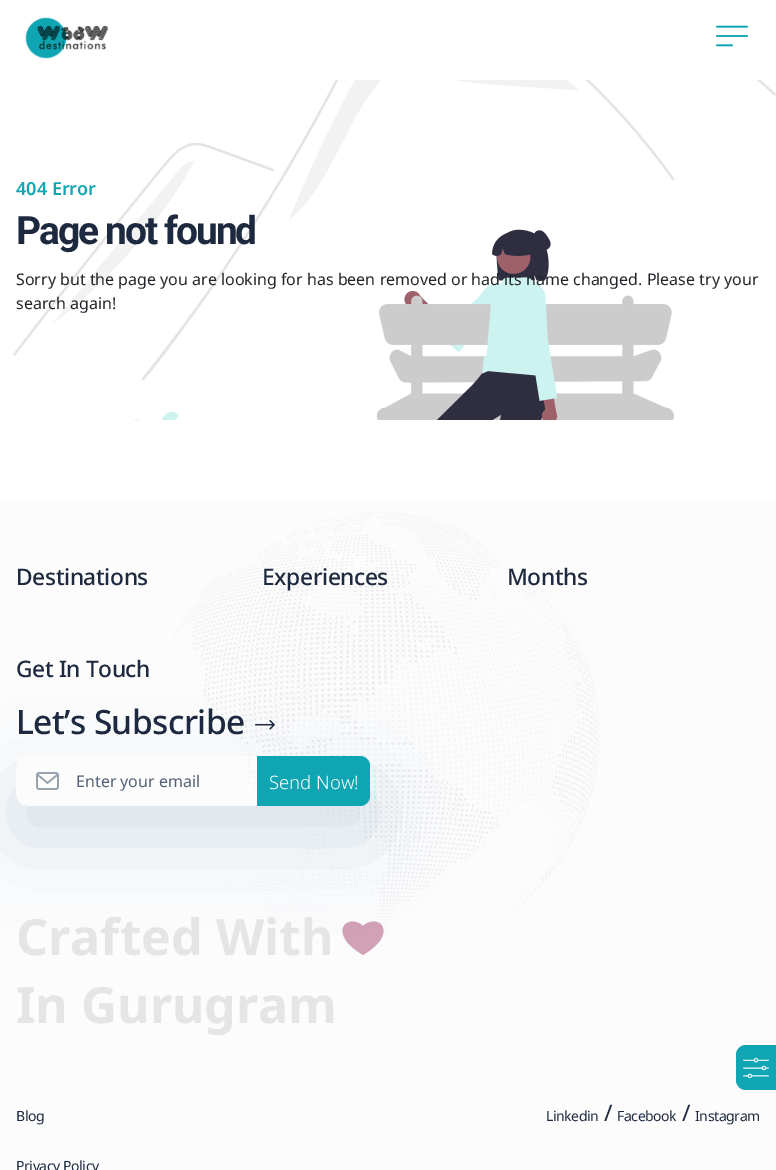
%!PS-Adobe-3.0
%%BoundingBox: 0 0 776 1170
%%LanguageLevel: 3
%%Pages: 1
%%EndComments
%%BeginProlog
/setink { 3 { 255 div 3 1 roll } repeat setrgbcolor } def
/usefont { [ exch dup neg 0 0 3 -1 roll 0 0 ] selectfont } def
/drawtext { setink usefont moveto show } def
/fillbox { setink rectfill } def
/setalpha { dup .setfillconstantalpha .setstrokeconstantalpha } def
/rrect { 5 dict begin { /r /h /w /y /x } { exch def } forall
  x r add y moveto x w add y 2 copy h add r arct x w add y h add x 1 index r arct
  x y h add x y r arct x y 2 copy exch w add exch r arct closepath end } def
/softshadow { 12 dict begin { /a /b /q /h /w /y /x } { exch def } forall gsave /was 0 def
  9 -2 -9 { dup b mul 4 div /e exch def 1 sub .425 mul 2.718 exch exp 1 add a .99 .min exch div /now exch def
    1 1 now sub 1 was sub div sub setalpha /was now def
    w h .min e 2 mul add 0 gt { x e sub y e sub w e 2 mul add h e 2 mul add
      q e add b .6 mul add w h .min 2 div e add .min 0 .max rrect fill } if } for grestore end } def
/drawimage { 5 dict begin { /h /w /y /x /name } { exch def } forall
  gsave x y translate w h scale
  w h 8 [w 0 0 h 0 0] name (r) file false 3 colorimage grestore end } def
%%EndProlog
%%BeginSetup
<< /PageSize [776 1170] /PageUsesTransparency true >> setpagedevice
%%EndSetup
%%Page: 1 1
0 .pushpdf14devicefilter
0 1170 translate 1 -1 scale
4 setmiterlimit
0 0 776 1170 255 255 255 fillbox
(assets/img1.rgb) 25 17 84 42 drawimage
(assets/img2.rgb) 716 25 32 22 drawimage
(assets/img3.rgb) 13 80 763 340 drawimage
(404 Error) 16 195 /NotoSans-SemiBold 18 16 165 178 drawtext
/Roboto-Bold 39 usefont
29 41 63 setink
16 244 moveto -2 0 (Page not found) ashow
(Sorry but the page you are looking for has been removed or had its name changed. Please try your) 16 285 /NotoSans-Regular 16 33 37 41 drawtext
(search again!) 16 309 /NotoSans-Regular 16 33 37 41 drawtext
0 500 776 670 252 252 253 fillbox
(assets/img4.rgb) 170 512 430 426 drawimage
/NotoSans-Medium 22.75 usefont
29 41 63 setink
16 585 moveto -0.4 0 (Destinations) ashow
262 585 moveto -0.4 0 (Experiences) ashow
507 585 moveto -0.4 0 (Months) ashow
16 677 moveto -0.4 0 (Get In Touch) ashow
(assets/img5.rgb) 255 720 20 10 drawimage
/NotoSans-Medium 33.5 usefont
16 734 moveto -0.6 0 (Let’s Subscribe) ashow
209 161 182 setink
363 955 moveto 355 950 345 943 343 934 curveto 340 921 355 918 363 926 curveto 371 918 386 921 383 934 curveto 381 943 371 950 363 955 curveto closepath fill
gsave
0 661 moveto 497 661 lineto 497 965 lineto 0 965 lineto closepath 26 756 moveto 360 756 lineto 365.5 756 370 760.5 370 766 curveto 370 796 lineto 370 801.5 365.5 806 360 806 curveto 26 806 lineto 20.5 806 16 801.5 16 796 curveto 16 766 lineto 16 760.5 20.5 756 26 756 curveto closepath eoclip newpath
14 86 124 setink
16 788 354 50 10 42 0.16 softshadow
grestore
(assets/img6.rgb) 36 772 23 18 drawimage
(Enter your email) 76 787 /NotoSans-Regular 16 84 96 120 drawtext
16 165 178 setink
257 756 moveto 360 756 lineto 365.5 756 370 760.5 370 766 curveto 370 796 lineto 370 801.5 365.5 806 360 806 curveto 257 806 lineto closepath fill
(Send Now!) 269 789 /NotoSans-Light 18.5 255 255 255 drawtext
(Crafted With) 16 955 /NotoSans-Bold 50 229 229 229 drawtext
(In Gurugram) 16 1023 /NotoSans-Bold 50 229 229 229 drawtext
/NotoSans-Regular 14 usefont
29 41 63 setink
16 1121 moveto -0.4 0 (Blog) ashow
16 1171 moveto -0.4 0 (Privacy Policy) ashow
546 1121 moveto -0.4 0 (Linkedin) ashow
/NotoSans-Regular 22.75 usefont
604 1121 moveto -0.4 0 (/) ashow
/NotoSans-Regular 14 usefont
617 1121 moveto -0.4 0 (Facebook) ashow
/NotoSans-Regular 22.75 usefont
682 1121 moveto -0.4 0 (/) ashow
/NotoSans-Regular 14 usefont
695 1121 moveto -0.4 0 (Instagram) ashow
16 165 178 setink
746 1045 moveto 776 1045 lineto 776 1090 lineto 746 1090 lineto 740.5 1090 736 1085.5 736 1080 curveto 736 1055 lineto 736 1049.5 740.5 1045 746 1045 curveto closepath fill
(assets/img7.rgb) 743 1057 26 21 drawimage
.poppdf14devicefilter showpage
%%EOF
